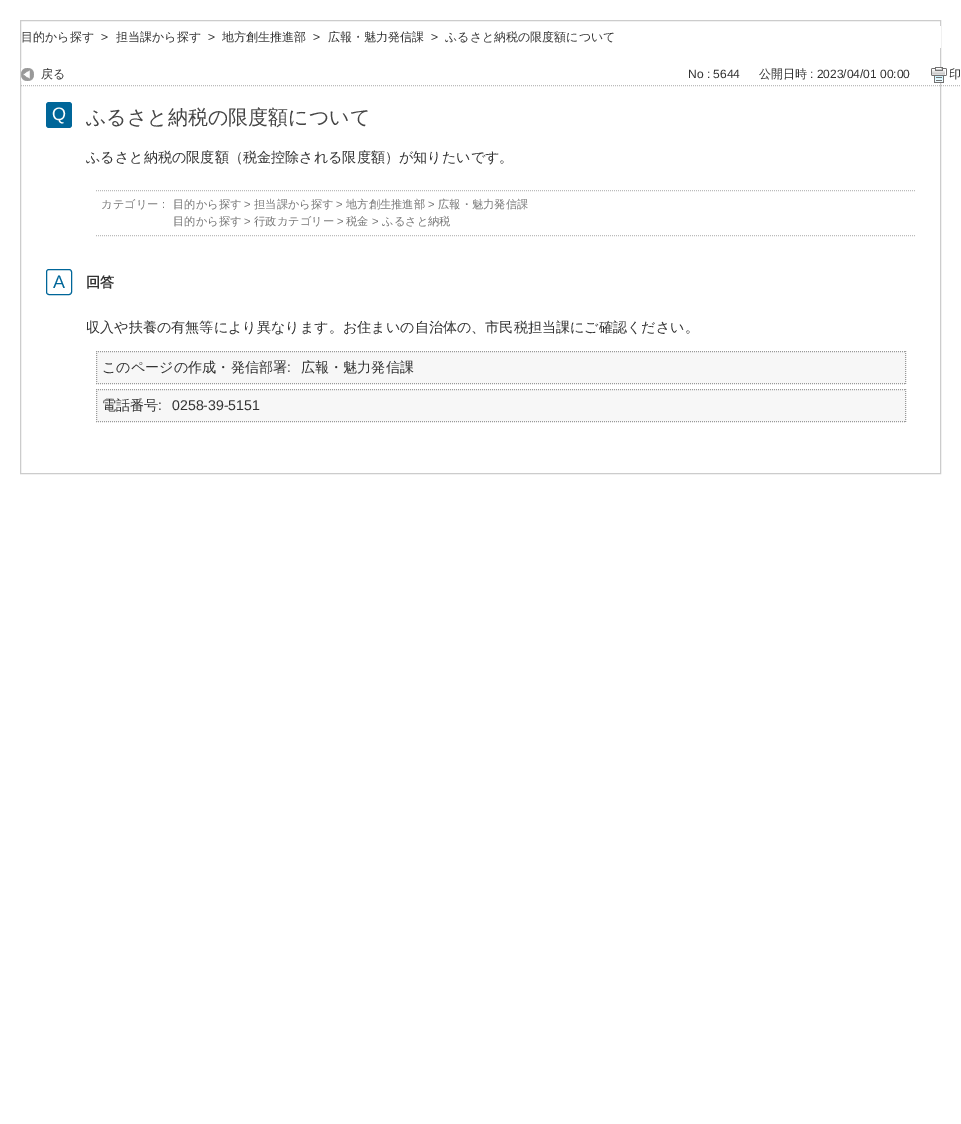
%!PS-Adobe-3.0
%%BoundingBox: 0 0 961 1124
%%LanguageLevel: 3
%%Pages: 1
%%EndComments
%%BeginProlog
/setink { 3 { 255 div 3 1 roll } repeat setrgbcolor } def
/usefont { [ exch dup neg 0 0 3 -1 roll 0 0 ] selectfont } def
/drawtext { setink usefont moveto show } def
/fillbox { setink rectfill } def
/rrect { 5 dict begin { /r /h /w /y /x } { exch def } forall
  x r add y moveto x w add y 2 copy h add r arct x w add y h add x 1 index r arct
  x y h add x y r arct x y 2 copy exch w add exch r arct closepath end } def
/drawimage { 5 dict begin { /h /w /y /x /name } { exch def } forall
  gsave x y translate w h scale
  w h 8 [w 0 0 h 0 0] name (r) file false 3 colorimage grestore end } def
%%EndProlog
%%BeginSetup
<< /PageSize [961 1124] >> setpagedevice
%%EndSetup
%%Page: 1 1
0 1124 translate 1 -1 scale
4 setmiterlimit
0 0 961 1124 255 255 255 fillbox
204 204 204 setink
20.5 20.5 920 453 rectstroke
940 26 1 22 255 255 255 fillbox
(目的から探す) 21 41 /WenQuanYiZenHei-Medium 12 51 51 51 drawtext
(>) 101 41 /LiberationSans-Regular 12 51 51 51 drawtext
(担当課から探す) 116 41 /WenQuanYiZenHei-Medium 12 51 51 51 drawtext
(>) 208 41 /LiberationSans-Regular 12 51 51 51 drawtext
(地方創生推進部) 222 41 /WenQuanYiZenHei-Medium 12 51 51 51 drawtext
(>) 313 41 /LiberationSans-Regular 12 51 51 51 drawtext
(広報・魅力発信課) 328 41 /WenQuanYiZenHei-Medium 12 51 51 51 drawtext
(>) 431 41 /LiberationSans-Regular 12 51 51 51 drawtext
(ふるさと納税の限度額について) 445 41 /WenQuanYiZenHei-Medium 12 51 51 51 drawtext
187 187 187 setink
[1 1] 0 setdash
21 85.5 moveto 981 85.5 lineto stroke
(assets/img1.rgb) 21 68 13 13 drawimage
(戻る) 41 78 /WenQuanYiZenHei-Medium 12 51 51 51 drawtext
(No : 5644) 688 78 /LiberationSans-Regular 12 51 51 51 drawtext
(公開日時) 759 78 /WenQuanYiZenHei-Medium 12 51 51 51 drawtext
(: 2023/04/01 00:00) 810 78 /LiberationSans-Regular 12 51 51 51 drawtext
(assets/img2.rgb) 931 67 16 16 drawimage
(印) 949 78 /WenQuanYiZenHei-Medium 12 51 51 51 drawtext
0 102 153 setink
46 102 26 26 3 rrect fill
(Q) 52 120 /LiberationSans-Regular 18 255 255 255 drawtext
(ふるさと納税の限度額について) 86 124 /WenQuanYiZenHei-Medium 20 68 68 68 drawtext
(ふるさと納税の限度額（税金控除される限度額）が知りたいです。) 86 162 /WenQuanYiZenHei-Medium 14.1 51 51 51 drawtext
187 187 187 setink
96 190.5 moveto 916 190.5 lineto stroke
96 235.5 moveto 916 235.5 lineto stroke
(カテゴリー) 101 208 /WenQuanYiZenHei-Medium 11.25 118 118 118 drawtext
(:) 162 208 /LiberationSans-Regular 11.25 118 118 118 drawtext
(目的から探す) 173 208 /WenQuanYiZenHei-Medium 11.25 118 118 118 drawtext
(>) 244 208 /LiberationSans-Regular 11.25 118 118 118 drawtext
(担当課から探す) 254 208 /WenQuanYiZenHei-Medium 11.25 118 118 118 drawtext
(>) 336 208 /LiberationSans-Regular 11.25 118 118 118 drawtext
(地方創生推進部) 346 208 /WenQuanYiZenHei-Medium 11.25 118 118 118 drawtext
(>) 428 208 /LiberationSans-Regular 11.25 118 118 118 drawtext
(広報・魅力発信課) 438 208 /WenQuanYiZenHei-Medium 11.25 118 118 118 drawtext
(目的から探す) 173 225 /WenQuanYiZenHei-Medium 11.25 118 118 118 drawtext
(>) 244 225 /LiberationSans-Regular 11.25 118 118 118 drawtext
(行政カテゴリー) 254 225 /WenQuanYiZenHei-Medium 11.25 118 118 118 drawtext
(>) 337 225 /LiberationSans-Regular 11.25 118 118 118 drawtext
(税金) 346 225 /WenQuanYiZenHei-Medium 11.25 118 118 118 drawtext
(>) 372 225 /LiberationSans-Regular 11.25 118 118 118 drawtext
(ふるさと納税) 382 225 /WenQuanYiZenHei-Medium 11.25 118 118 118 drawtext
0 102 153 setink
[] 0 setdash
46.5 269.5 25 25 2.5 rrect stroke
(A) 53 288 /LiberationSans-Regular 18 0 102 153 drawtext
(回答) 86 287 /WenQuanYiZenHei-Bold 14.1 51 51 51 drawtext
(収入や扶養の有無等により異なります。お住まいの自治体の、市民税担当課にご確認ください。) 86 332 /WenQuanYiZenHei-Medium 14.1 51 51 51 drawtext
96 351 810 33 247 247 247 fillbox
153 153 153 setink
[1 1] 0 setdash
96 351.5 moveto 906 351.5 lineto stroke
905.5 351 moveto 905.5 384 lineto stroke
96 383.5 moveto 906 383.5 lineto stroke
96.5 351 moveto 96.5 384 lineto stroke
(このページの作成・発信部署) 102 372 /WenQuanYiZenHei-Medium 14.1 51 51 51 drawtext
(:) 287 372 /LiberationSans-Regular 14.1 51 51 51 drawtext
(広報・魅力発信課) 301 372 /WenQuanYiZenHei-Medium 14.1 51 51 51 drawtext
96 389 810 33 247 247 247 fillbox
153 153 153 setink
96 389.5 moveto 906 389.5 lineto stroke
905.5 389 moveto 905.5 422 lineto stroke
96 421.5 moveto 906 421.5 lineto stroke
96.5 389 moveto 96.5 422 lineto stroke
(電話番号) 102 410 /WenQuanYiZenHei-Medium 14.1 51 51 51 drawtext
(:) 158 410 /LiberationSans-Regular 14.1 51 51 51 drawtext
(0258-39-5151) 172 410 /LiberationSans-Regular 14.1 51 51 51 drawtext
showpage
%%EOF
